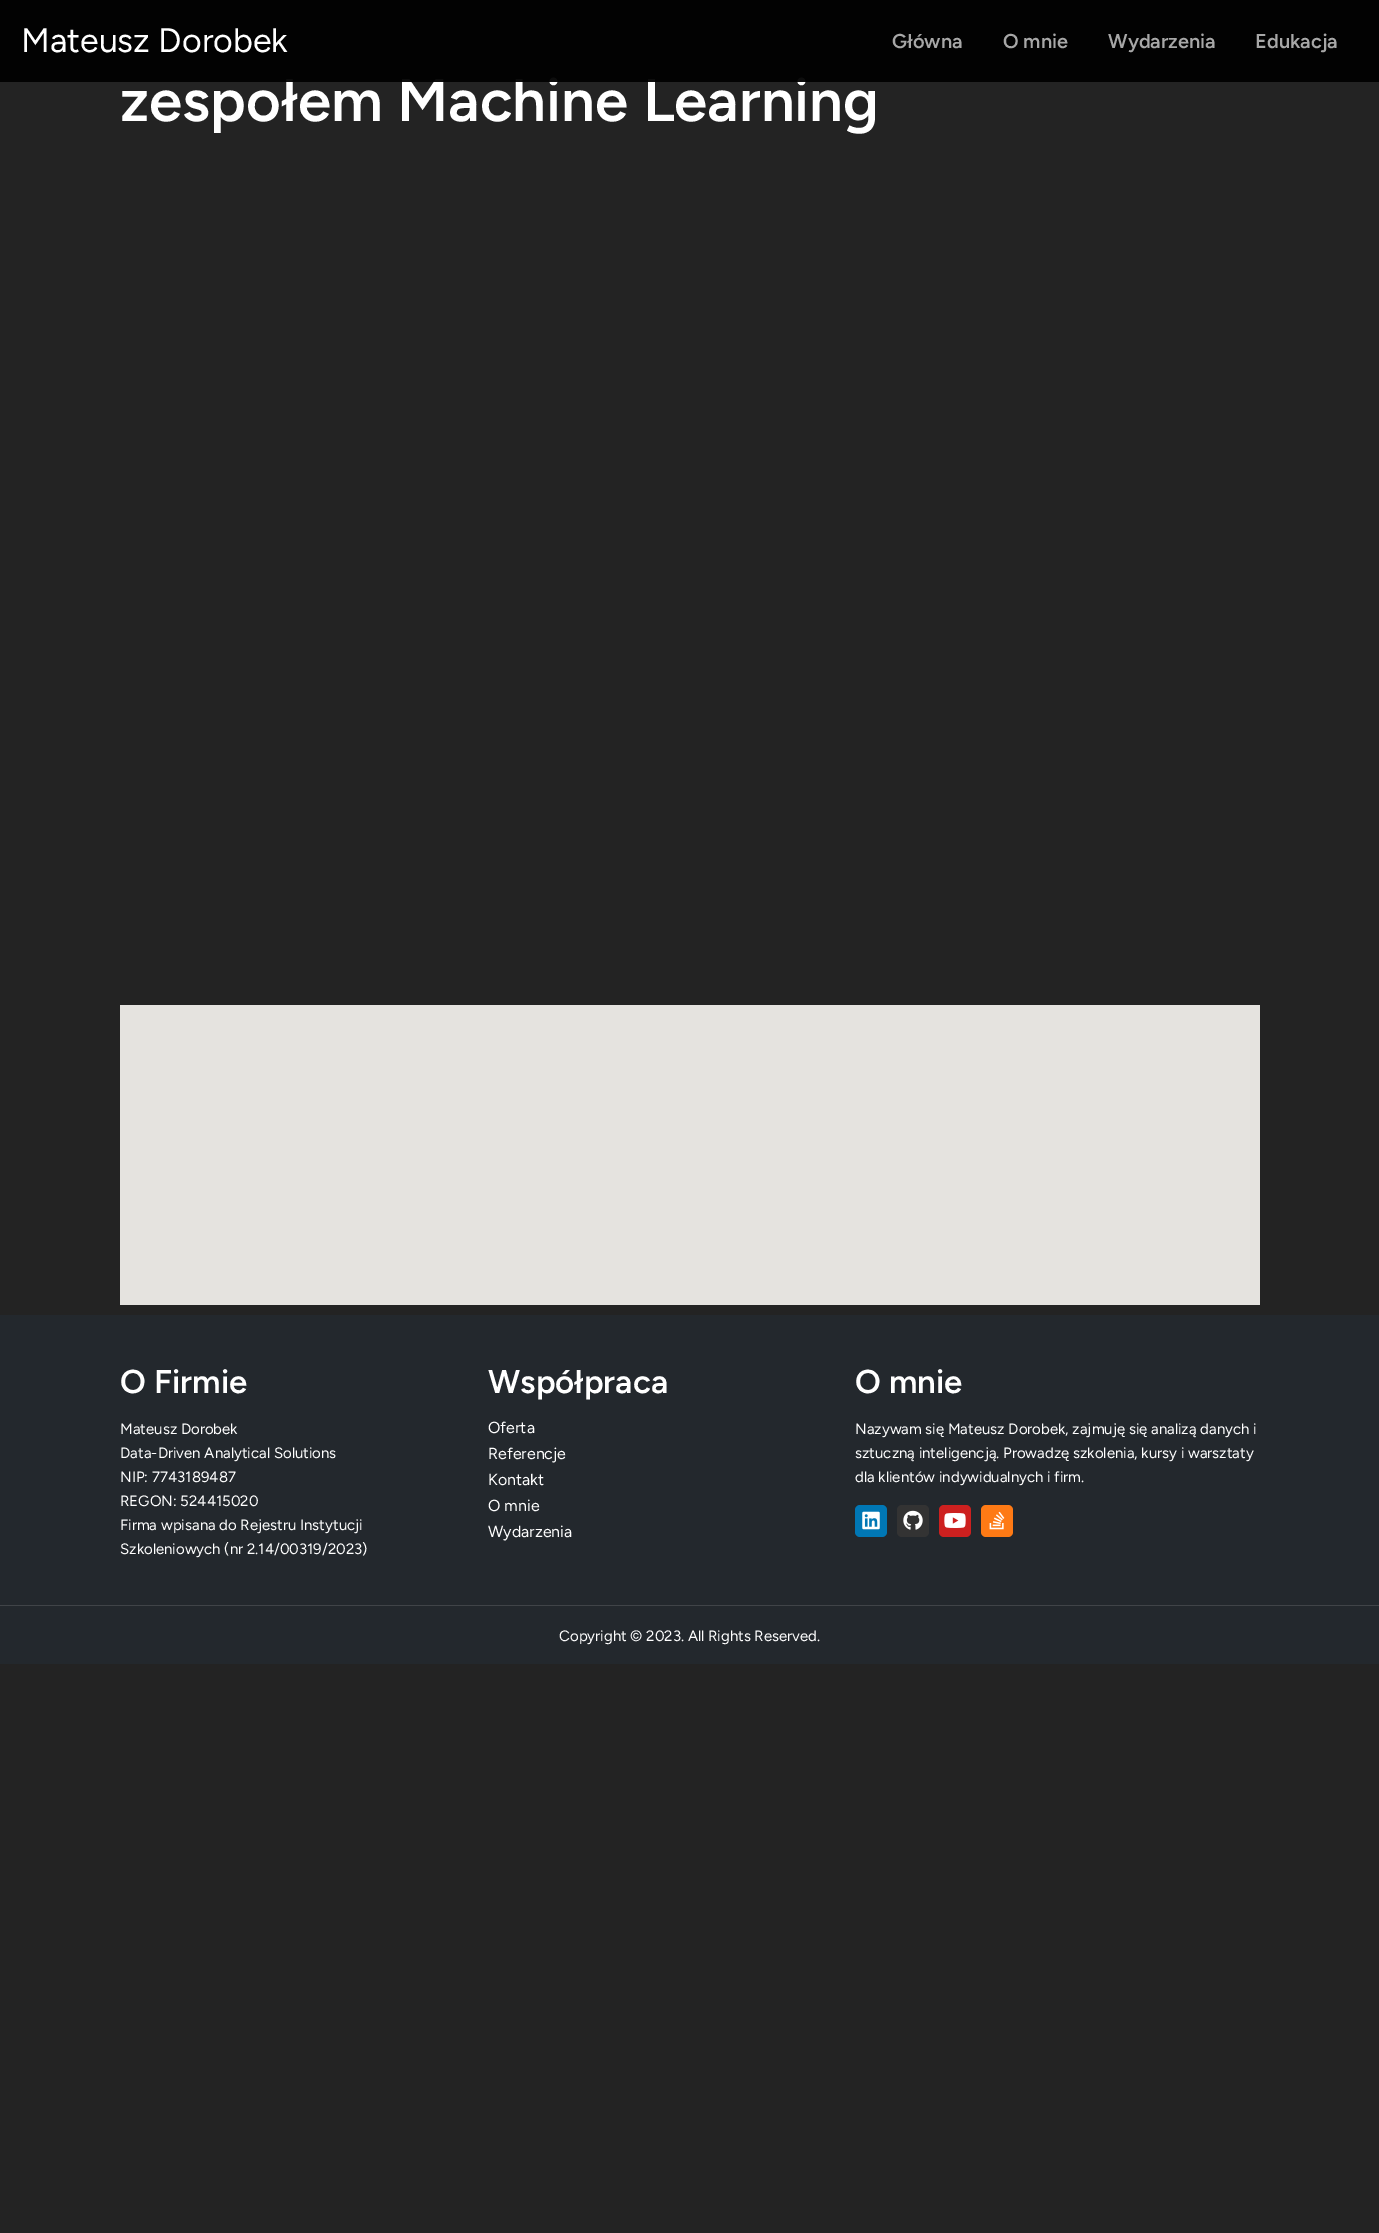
%!PS-Adobe-3.0
%%BoundingBox: 0 0 1379 2233
%%LanguageLevel: 3
%%Pages: 1
%%EndComments
%%BeginProlog
/setink { 3 { 255 div 3 1 roll } repeat setrgbcolor } def
/usefont { [ exch dup neg 0 0 3 -1 roll 0 0 ] selectfont } def
/drawtext { setink usefont moveto show } def
/fillbox { setink rectfill } def
/setalpha { dup .setfillconstantalpha .setstrokeconstantalpha } def
/rrect { 5 dict begin { /r /h /w /y /x } { exch def } forall
  x r add y moveto x w add y 2 copy h add r arct x w add y h add x 1 index r arct
  x y h add x y r arct x y 2 copy exch w add exch r arct closepath end } def
/drawimage { 5 dict begin { /h /w /y /x /name } { exch def } forall
  gsave x y translate w h scale
  w h 8 [w 0 0 h 0 0] name (r) file false 3 colorimage grestore end } def
%%EndProlog
%%BeginSetup
<< /PageSize [1379 2233] /PageUsesTransparency true >> setpagedevice
%%EndSetup
%%Page: 1 1
0 .pushpdf14devicefilter
0 2233 translate 1 -1 scale
4 setmiterlimit
0 0 1379 2233 35 35 35 fillbox
(zespołem Machine Learning) 120 121 /Figtree-SemiBold 60 255 255 255 drawtext
0.95 setalpha
0 0 1379 82 0 0 0 fillbox
1 setalpha
(Mateusz Dorobek) 21 52 /Figtree-Regular 34 255 255 255 drawtext
(Główna) 892 48 /Figtree-SemiBold 20 167 167 167 drawtext
(O mnie) 1003 48 /Figtree-SemiBold 20 167 167 167 drawtext
(Wydarzenia) 1108 48 /Figtree-SemiBold 20 167 167 167 drawtext
(Edukacja) 1255 48 /Figtree-SemiBold 20 167 167 167 drawtext
120 1005 1140 300 229 227 223 fillbox
0 1315 1379 290 35 40 45 fillbox
(O Firmie) 120 1393 /Figtree-SemiBold 33 255 255 255 drawtext
(Mateusz Dorobek) 120 1434 /Figtree-Regular 15 255 255 255 drawtext
(Data-Driven Analytical Solutions) 120 1458 /Figtree-Regular 15 255 255 255 drawtext
(NIP: 7743189487) 120 1482 /Figtree-Regular 15 255 255 255 drawtext
(REGON: 524415020) 120 1506 /Figtree-Regular 15 255 255 255 drawtext
(Firma wpisana do Rejestru Instytucji) 120 1530 /Figtree-Regular 15 255 255 255 drawtext
(Szkoleniowych \(nr 2.14/00319/2023\)) 120 1554 /Figtree-Regular 15 255 255 255 drawtext
(Współpraca) 488 1393 /Figtree-SemiBold 33 255 255 255 drawtext
(Oferta) 488 1433 /Figtree-Regular 16 255 255 255 drawtext
(Referencje) 488 1459 /Figtree-Regular 16 255 255 255 drawtext
(Kontakt) 488 1485 /Figtree-Regular 16 255 255 255 drawtext
(O mnie) 488 1511 /Figtree-Regular 16 255 255 255 drawtext
(Wydarzenia) 488 1537 /Figtree-Regular 16 255 255 255 drawtext
(O mnie) 855 1393 /Figtree-SemiBold 33 255 255 255 drawtext
(Nazywam się Mateusz Dorobek, zajmuję się analizą danych i) 855 1434 /Figtree-Regular 15 255 255 255 drawtext
(sztuczną inteligencją. Prowadzę szkolenia, kursy i warsztaty) 855 1458 /Figtree-Regular 15 255 255 255 drawtext
(dla klientów indywidualnych i firm.) 855 1482 /Figtree-Regular 15 255 255 255 drawtext
0 119 181 setink
855 1505 32 32 5 rrect fill
(assets/img1.rgb) 862 1511 18 19 drawimage
51 51 51 setink
897 1505 32 32 5 rrect fill
(assets/img2.rgb) 903 1510 20 20 drawimage
205 32 31 setink
939 1505 32 32 5 rrect fill
(assets/img3.rgb) 944 1513 22 15 drawimage
254 122 21 setink
981 1505 32 32 5 rrect fill
(assets/img4.rgb) 989 1511 16 19 drawimage
0 1606 1379 58 35 40 45 fillbox
0 1605 1379 1 64 68 72 fillbox
(Copyright © 2023. All Rights Reserved.) 559 1641 /Figtree-Regular 15 255 255 255 drawtext
.poppdf14devicefilter showpage
%%EOF
